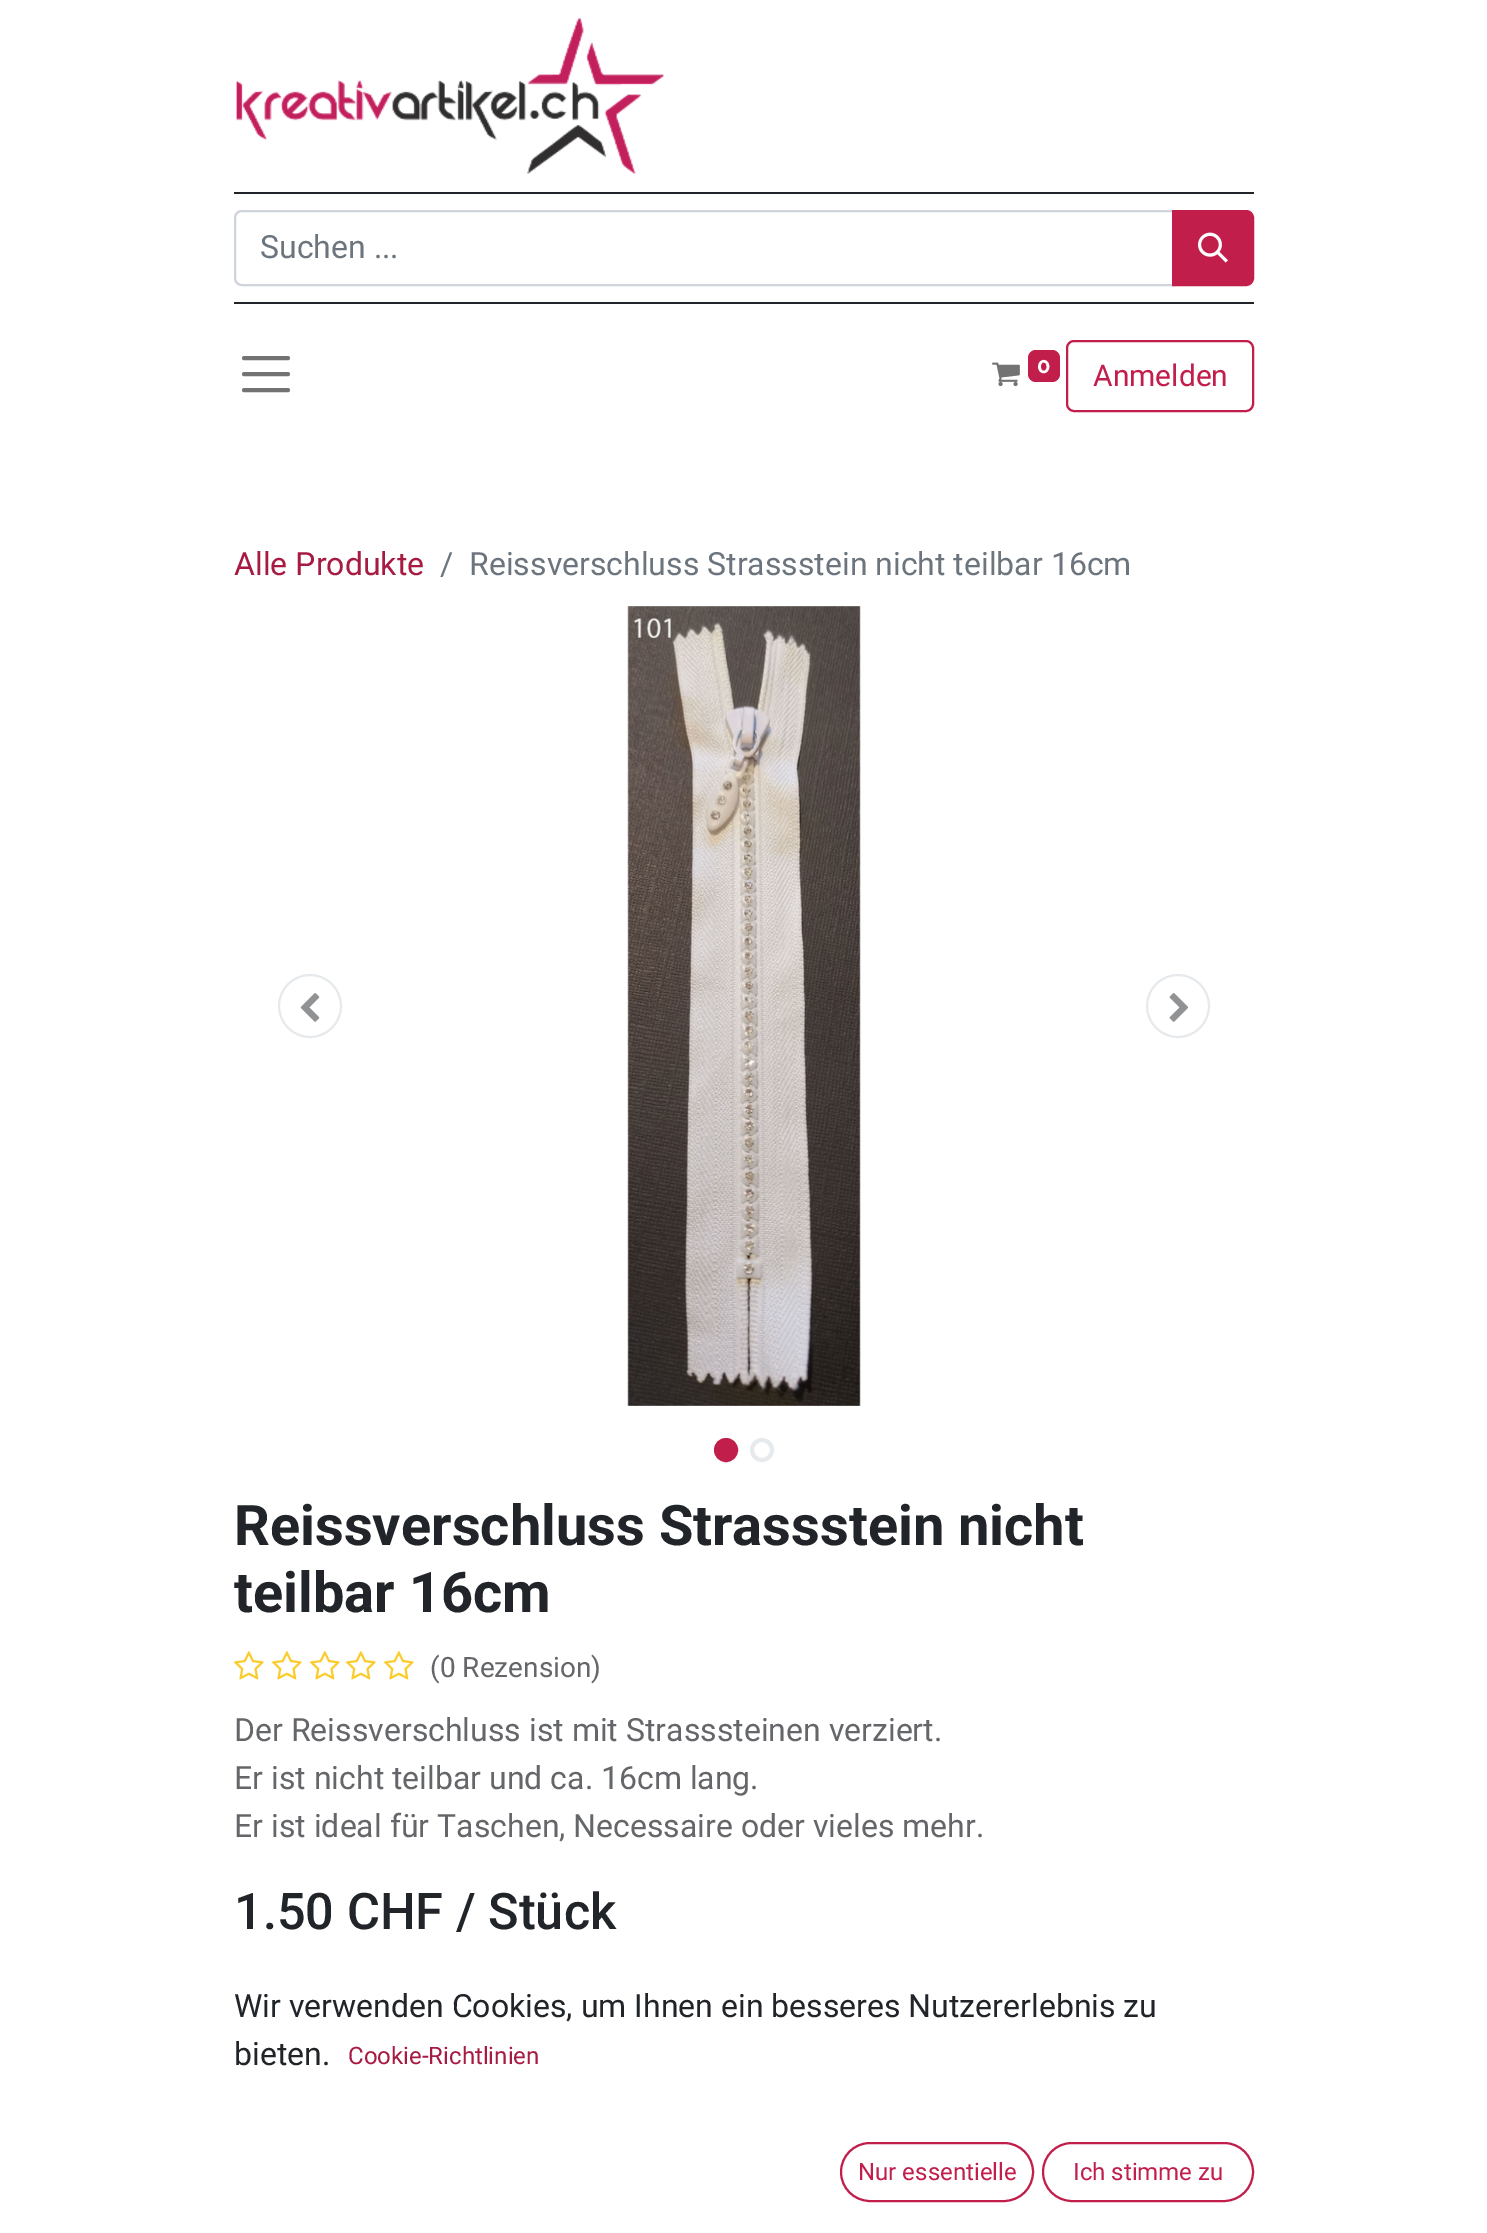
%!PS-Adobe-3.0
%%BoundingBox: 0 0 1487 2233
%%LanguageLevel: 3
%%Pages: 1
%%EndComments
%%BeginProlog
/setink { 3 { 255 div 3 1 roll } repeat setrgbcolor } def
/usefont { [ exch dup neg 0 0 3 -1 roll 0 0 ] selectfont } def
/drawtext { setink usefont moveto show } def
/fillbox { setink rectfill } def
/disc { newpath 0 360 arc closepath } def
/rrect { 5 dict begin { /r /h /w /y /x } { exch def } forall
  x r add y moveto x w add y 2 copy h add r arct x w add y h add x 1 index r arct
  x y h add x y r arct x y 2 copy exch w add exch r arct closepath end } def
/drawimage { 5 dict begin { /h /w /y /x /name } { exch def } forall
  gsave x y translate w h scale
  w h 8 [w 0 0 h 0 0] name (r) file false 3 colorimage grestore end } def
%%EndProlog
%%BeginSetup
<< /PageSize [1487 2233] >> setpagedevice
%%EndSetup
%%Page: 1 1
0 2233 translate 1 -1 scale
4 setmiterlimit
0 0 1487 2233 255 255 255 fillbox
(assets/img1.rgb) 236 17 428 157 drawimage
234 192 1020 2 33 37 41 fillbox
206 212 218 setink
2 setlinewidth
242 211 moveto 1175 211 lineto 1175 285 lineto 242 285 lineto 238 285 235 282 235 278 curveto 235 218 lineto 235 214 238 211 242 211 curveto closepath stroke
(Suchen ...) 260 258 /Roboto-Regular 32 108 117 125 drawtext
194 30 76 setink
1173 211 moveto 1246 211 lineto 1250 211 1253 214 1253 218 curveto 1253 278 lineto 1253 282 1250 285 1246 285 curveto 1173 285 lineto closepath gsave fill grestore
stroke
(assets/img2.rgb) 1198 232 30 31 drawimage
234 302 1020 2 33 37 41 fillbox
115 115 115 setink
4 setlinewidth
1 setlinecap
244 358 moveto 288 358 lineto 244 374 moveto 288 374 lineto 244 390 moveto 288 390 lineto stroke
(assets/img3.rgb) 992 362 28 25 drawimage
194 30 76 setink
1028 350 32 32 8 rrect fill
(0) 1037 373 /Raleway-Bold 22 255 255 255 drawtext
194 30 76 setink
2 setlinewidth
0 setlinecap
1067 341 186 70 7 rrect stroke
(Anmelden) 1093 386 /Roboto-Regular 30 194 30 76 drawtext
(Alle Produkte) 234 575 /Roboto-Regular 32 167 26 66 drawtext
(/) 440 575 /Roboto-Regular 32 108 117 125 drawtext
(Reissverschluss Strassstein nicht teilbar 16cm) 469 575 /Roboto-Regular 32 108 117 125 drawtext
231 234 237 setink
310 1006 31 disc stroke
(assets/img4.rgb) 300 993 20 29 drawimage
(assets/img5.rgb) 627 606 234 800 drawimage
1178 1006 31 disc stroke
(assets/img6.rgb) 1169 993 20 29 drawimage
194 30 76 setink
726 1450 10 disc gsave fill grestore
4 setlinewidth
stroke
231 234 237 setink
762 1450 10 disc stroke
(Reissverschluss Strassstein nicht) 234 1545 /Roboto-Bold 56 33 37 41 drawtext
(teilbar 16cm) 234 1612 /Roboto-Bold 56 33 37 41 drawtext
(assets/img7.rgb) 234 1651 30 29 drawimage
(assets/img7.rgb) 272 1651 30 29 drawimage
(assets/img7.rgb) 310 1651 30 29 drawimage
(assets/img7.rgb) 346 1651 30 29 drawimage
(assets/img7.rgb) 384 1651 30 29 drawimage
(\(0 Rezension\)) 430 1677 /Roboto-Regular 28 100 102 105 drawtext
(Der Reissverschluss ist mit Strasssteinen verziert.) 234 1741 /Roboto-Regular 32 100 102 105 drawtext
(Er ist nicht teilbar und ca. 16cm lang.) 234 1789 /Roboto-Regular 32 100 102 105 drawtext
(Er ist ideal für Taschen, Necessaire oder vieles mehr.) 234 1837 /Roboto-Regular 32 100 102 105 drawtext
(1.50 CHF / Stück) 234 1929 /Roboto-Medium 50.5 33 37 41 drawtext
(Wir verwenden Cookies, um Ihnen ein besseres Nutzererlebnis zu) 234 2017 /Roboto-Regular 32 33 37 41 drawtext
(bieten.) 234 2065 /Roboto-Regular 32 33 37 41 drawtext
(Cookie-Richtlinien) 348 2064 /Roboto-Regular 24 167 26 66 drawtext
194 30 76 setink
2 setlinewidth
841 2143 192 58 29 rrect stroke
(Nur essentielle) 858 2180 /Roboto-Regular 24 194 30 76 drawtext
1043 2143 210 58 29 rrect stroke
(Ich stimme zu) 1073 2180 /Roboto-Regular 24 194 30 76 drawtext
showpage
%%EOF
